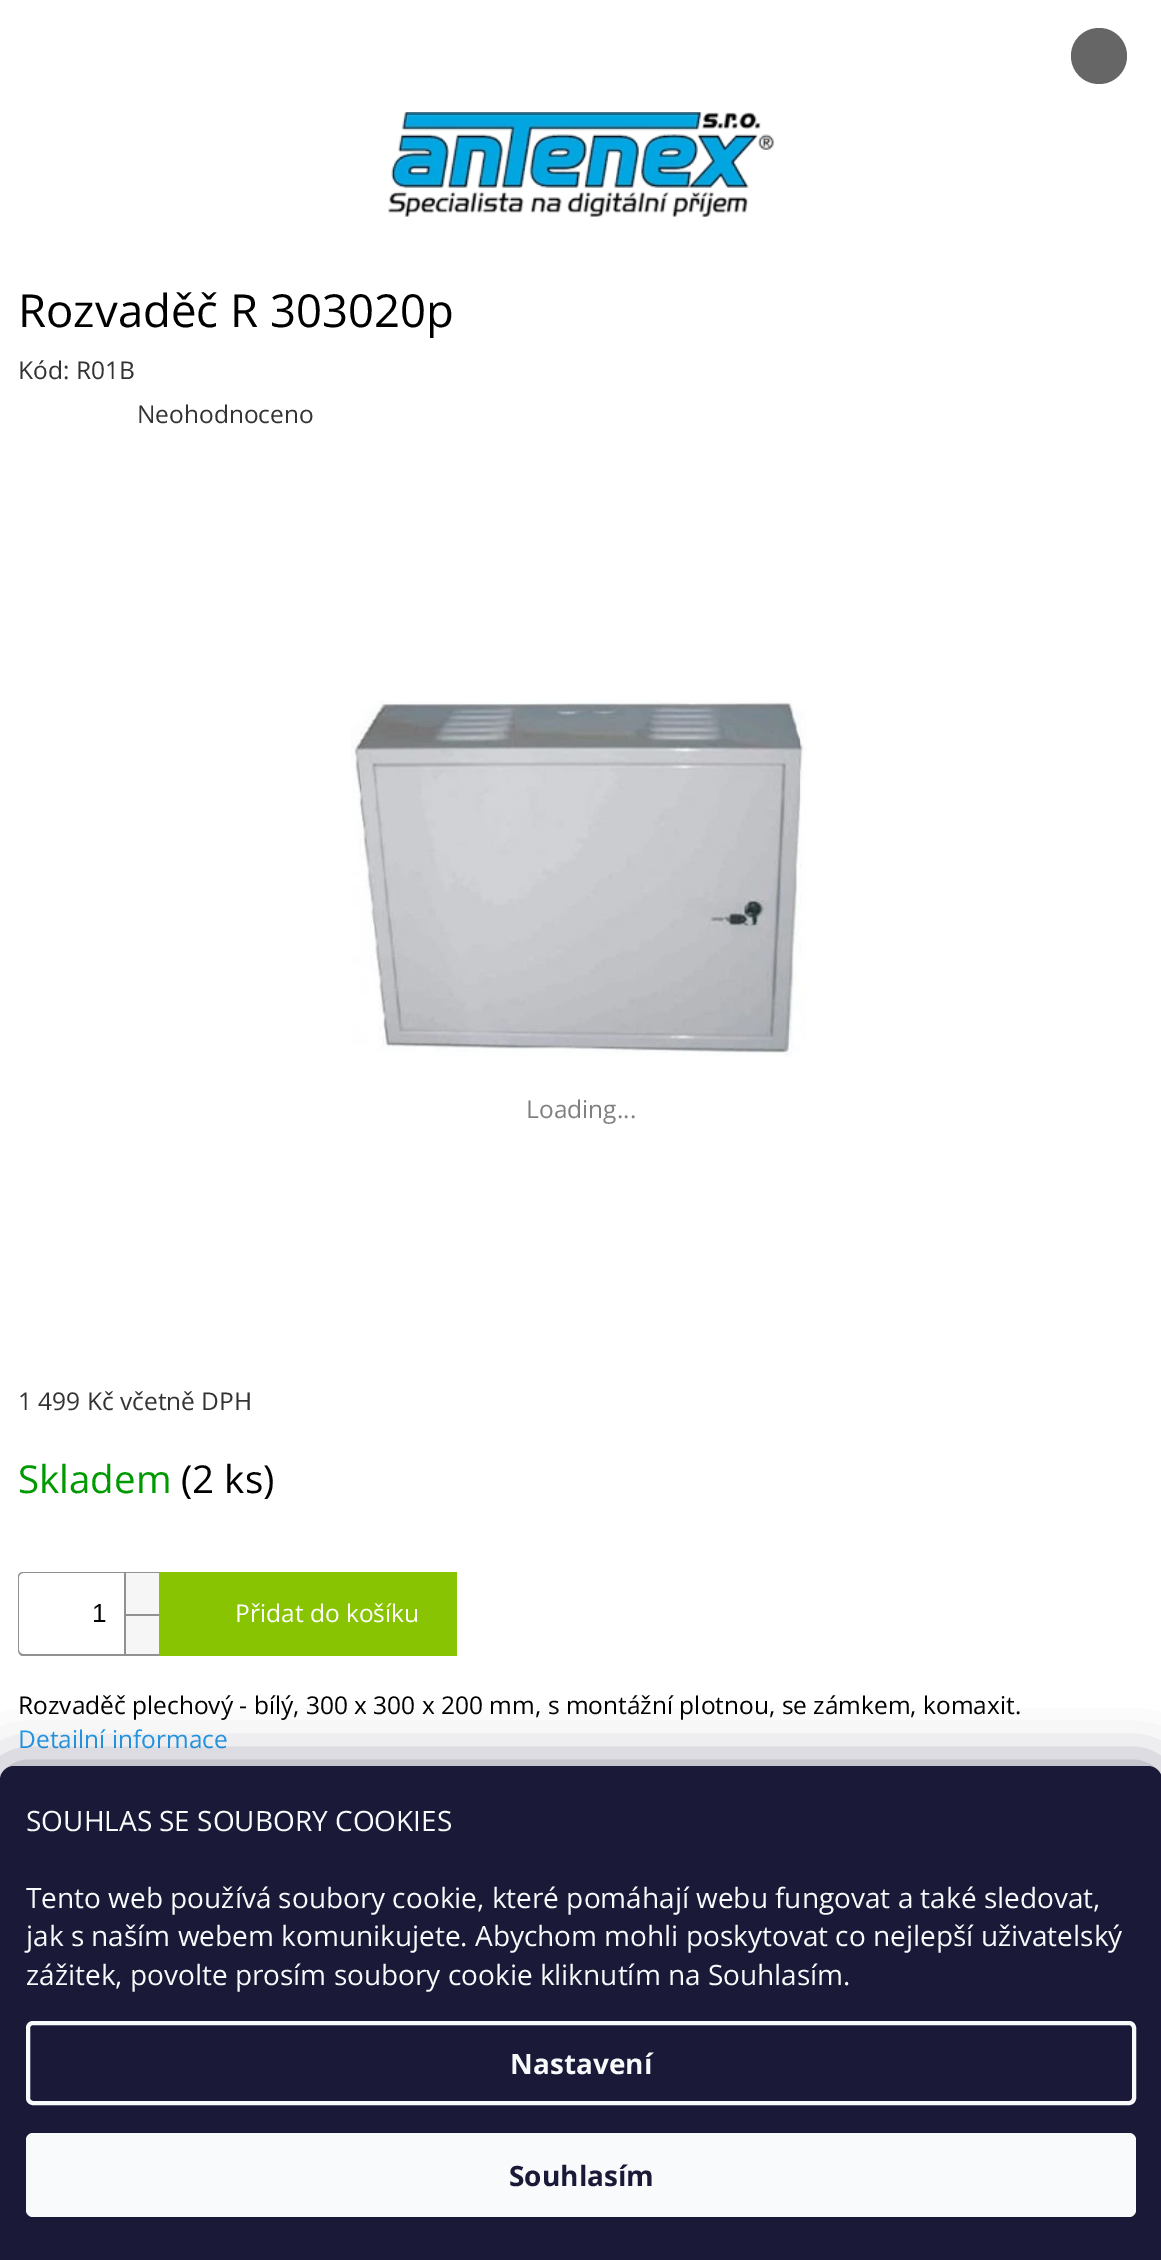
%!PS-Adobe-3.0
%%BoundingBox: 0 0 1161 2260
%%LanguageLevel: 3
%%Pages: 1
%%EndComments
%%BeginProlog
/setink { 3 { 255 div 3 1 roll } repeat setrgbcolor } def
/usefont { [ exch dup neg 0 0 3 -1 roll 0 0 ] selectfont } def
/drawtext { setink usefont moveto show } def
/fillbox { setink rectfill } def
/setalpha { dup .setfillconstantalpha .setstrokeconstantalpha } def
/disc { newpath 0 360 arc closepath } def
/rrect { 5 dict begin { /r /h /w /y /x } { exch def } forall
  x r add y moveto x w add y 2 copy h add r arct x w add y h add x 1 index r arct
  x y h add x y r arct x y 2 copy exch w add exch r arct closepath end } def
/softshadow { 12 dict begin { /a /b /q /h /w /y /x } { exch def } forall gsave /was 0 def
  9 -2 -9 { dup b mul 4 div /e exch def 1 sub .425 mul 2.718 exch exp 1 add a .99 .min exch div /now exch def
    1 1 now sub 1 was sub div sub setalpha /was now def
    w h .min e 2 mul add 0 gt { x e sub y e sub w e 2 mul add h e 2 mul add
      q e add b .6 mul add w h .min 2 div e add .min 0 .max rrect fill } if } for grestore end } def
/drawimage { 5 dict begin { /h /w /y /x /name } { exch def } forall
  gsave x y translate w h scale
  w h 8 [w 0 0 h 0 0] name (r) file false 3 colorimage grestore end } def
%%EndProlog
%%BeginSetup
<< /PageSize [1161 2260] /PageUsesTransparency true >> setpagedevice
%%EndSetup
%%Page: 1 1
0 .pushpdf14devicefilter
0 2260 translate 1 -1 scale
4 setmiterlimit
0 0 1161 2260 255 255 255 fillbox
102 102 102 setink
1099 56 28 disc fill
(assets/img1.rgb) 388 112 386 105 drawimage
(Rozvaděč R 303020p) 18 327 /OpenSans-Regular 45.5 0 0 0 drawtext
(Kód: R01B) 18 379 /OpenSans-Regular 24.5 51 51 51 drawtext
(Neohodnoceno) 137 423 /OpenSans-Regular 24.5 51 51 51 drawtext
(assets/img2.rgb) 351 700 455 357 drawimage
(Loading...) 526 1118 /OpenSans-Regular 24.5 128 128 128 drawtext
(1 499 Kč včetně DPH) 18 1410 /OpenSans-Regular 24.5 51 51 51 drawtext
(Skladem) 18 1493 /OpenSans-Regular 38.5 0 153 1 drawtext
(\(2 ks\)) 181 1493 /OpenSans-Regular 38.5 0 0 0 drawtext
145 145 145 setink
23 1572 moveto 159 1572 lineto 159 1656 lineto 23 1656 lineto 20 1656 18 1653 18 1650 curveto 18 1577 lineto 18 1574 20 1572 23 1572 curveto closepath 23 1573 moveto 159 1573 lineto 159 1654 lineto 23 1654 lineto 21 1654 19 1652 19 1650 curveto 19 1577 lineto 19 1575 21 1573 23 1573 curveto closepath eofill
(1) 92 1622 /LiberationSans-Regular 26 0 0 0 drawtext
126 1573 33 41 246 246 246 fillbox
124 1573 2 41 145 145 145 fillbox
126 1616 33 38 246 246 246 fillbox
124 1614 35 2 145 145 145 fillbox
124 1614 2 40 145 145 145 fillbox
159 1572 298 84 137 196 3 fillbox
(Přidat do košíku) 235 1622 /OpenSans-Regular 24.5 255 255 255 drawtext
(Rozvaděč plechový - bílý, 300 x 300 x 200 mm, s montážní plotnou, se zámkem, komaxit.) 18 1714 /OpenSans-Regular 24.5 0 0 0 drawtext
(Detailní informace) 18 1748 /OpenSans-Regular 24.5 35 156 235 drawtext
27 25 57 setink
0 1766 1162 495 14 26 0.5 softshadow
26 25 55 setink
14 1766 moveto 1148 1766 lineto 1155.5 1766 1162 1772.5 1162 1780 curveto 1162 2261 lineto 0 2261 lineto 0 1780 lineto 0 1772.5 6.5 1766 14 1766 curveto closepath fill
(SOUHLAS SE SOUBORY COOKIES) 26 1831 /OpenSans-Regular 28 248 250 251 drawtext
(Tento web používá soubory cookie, které pomáhají webu fungovat a také sledovat,) 26 1908 /OpenSans-Regular 28 248 250 251 drawtext
(jak s naším webem komunikujete. Abychom mohli poskytovat co nejlepší uživatelský) 26 1946 /OpenSans-Regular 28 248 250 251 drawtext
(zážitek, povolte prosím soubory cookie kliknutím na Souhlasím.) 26 1985 /OpenSans-Regular 28 248 250 251 drawtext
4 setlinewidth
28 2023 1106 80 5 rrect stroke
(Nastavení) 510 2074 /OpenSans-Bold 28 248 250 251 drawtext
26 2133 1110 84 7 rrect fill
(Souhlasím) 509 2186 /OpenSans-Bold 28 26 25 55 drawtext
.poppdf14devicefilter showpage
%%EOF
